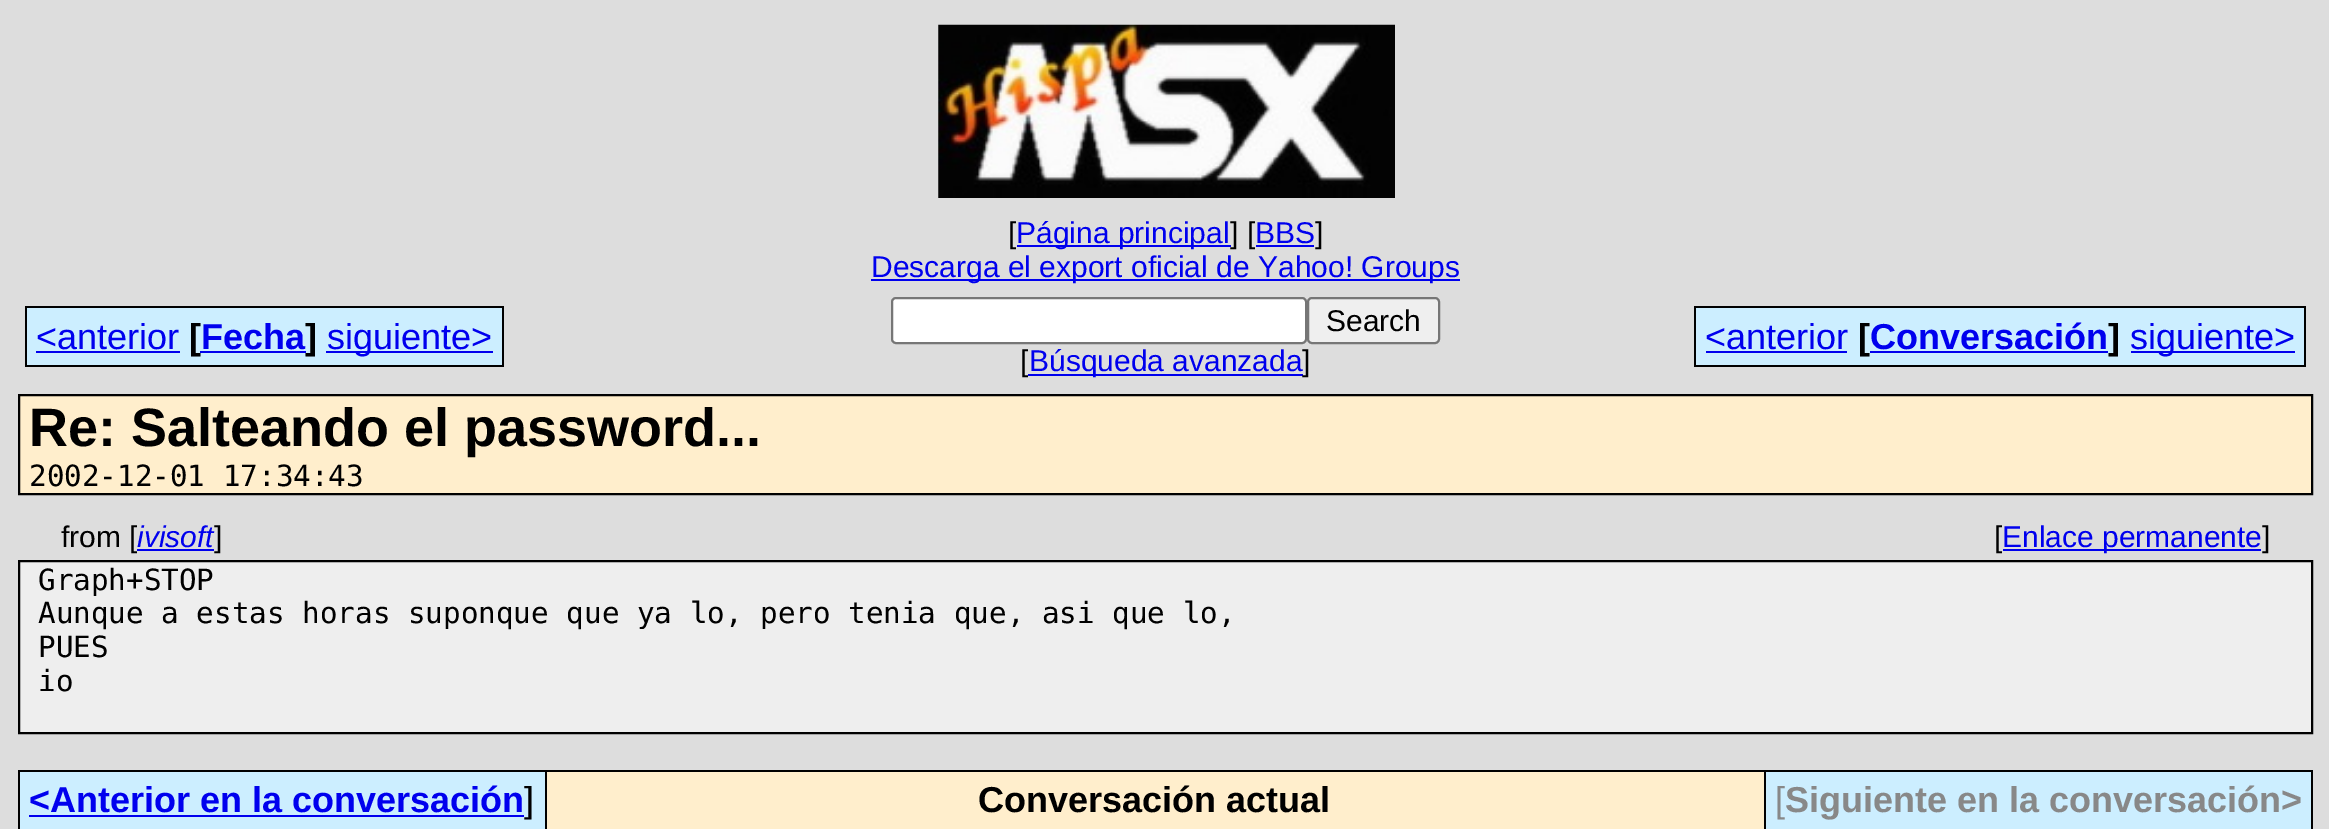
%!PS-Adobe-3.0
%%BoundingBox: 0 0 2329 829
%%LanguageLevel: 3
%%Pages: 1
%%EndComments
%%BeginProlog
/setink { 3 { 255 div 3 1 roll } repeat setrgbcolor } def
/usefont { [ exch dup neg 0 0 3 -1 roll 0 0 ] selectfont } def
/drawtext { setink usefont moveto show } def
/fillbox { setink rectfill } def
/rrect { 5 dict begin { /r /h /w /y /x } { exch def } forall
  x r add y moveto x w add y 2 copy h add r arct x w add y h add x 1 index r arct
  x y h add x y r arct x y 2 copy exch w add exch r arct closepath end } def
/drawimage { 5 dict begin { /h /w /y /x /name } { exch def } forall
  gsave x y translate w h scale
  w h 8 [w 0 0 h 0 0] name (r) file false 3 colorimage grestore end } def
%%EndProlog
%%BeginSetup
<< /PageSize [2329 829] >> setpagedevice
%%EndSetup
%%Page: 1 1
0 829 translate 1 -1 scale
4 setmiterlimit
0 0 2329 829 221 221 221 fillbox
(assets/img1.rgb) 938 24 457 174 drawimage
([) 1008 243 /LiberationSans-Regular 30 0 0 0 drawtext
1017 245 214 2 0 0 238 fillbox
(Página principal) 1016 243 /LiberationSans-Regular 30 0 0 238 drawtext
(] [) 1230 243 /LiberationSans-Regular 30 0 0 0 drawtext
(BBS) 1255 243 /LiberationSans-Regular 30 0 0 238 drawtext
(]) 1315 243 /LiberationSans-Regular 30 0 0 0 drawtext
1256 245 58 2 0 0 238 fillbox
871 279 589 2 0 0 238 fillbox
(Descarga el export oficial de Yahoo! Groups) 871 277 /LiberationSans-Regular 30 0 0 238 drawtext
27 308 475 57 204 238 255 fillbox
(<anterior) 36 349 /LiberationSans-Regular 36 0 0 238 drawtext
25 306 479 2 0 0 0 fillbox
25 365 301 2 0 0 0 fillbox
25 306 2 61 0 0 0 fillbox
36 351 144 2 0 0 238 fillbox
([) 189 349 /LiberationSans-Bold 36 0 0 0 drawtext
200 351 106 2 0 0 238 fillbox
(Fecha) 201 349 /LiberationSans-Bold 36 0 0 238 drawtext
(]) 305 349 /LiberationSans-Bold 36 0 0 0 drawtext
326 351 167 2 0 0 238 fillbox
(siguiente>) 327 349 /LiberationSans-Regular 36 0 0 238 drawtext
502 306 2 61 0 0 0 fillbox
326 365 178 2 0 0 0 fillbox
255 255 255 setink
892 298 414 45 4 rrect gsave fill grestore
118 118 118 setink
2 setlinewidth
stroke
239 239 239 setink
1308 298 131 45 4 rrect gsave fill grestore
118 118 118 setink
stroke
(Search) 1326 331 /LiberationSans-Regular 30 0 0 0 drawtext
([) 1020 371 /LiberationSans-Regular 30 0 0 0 drawtext
1028 374 275 2 0 0 238 fillbox
(Búsqueda avanzada) 1029 371 /LiberationSans-Regular 30 0 0 238 drawtext
(]) 1302 371 /LiberationSans-Regular 30 0 0 0 drawtext
1696 308 608 57 204 238 255 fillbox
(<anterior) 1705 349 /LiberationSans-Regular 36 0 0 238 drawtext
1694 306 612 2 0 0 0 fillbox
1694 365 437 2 0 0 0 fillbox
1694 306 2 61 0 0 0 fillbox
1706 351 141 2 0 0 238 fillbox
([) 1858 349 /LiberationSans-Bold 36 0 0 0 drawtext
1870 351 238 2 0 0 238 fillbox
(Conversación) 1870 349 /LiberationSans-Bold 36 0 0 238 drawtext
(]) 2108 349 /LiberationSans-Bold 36 0 0 0 drawtext
2131 351 164 2 0 0 238 fillbox
(siguiente>) 2130 349 /LiberationSans-Regular 36 0 0 238 drawtext
2304 306 2 61 0 0 0 fillbox
2131 365 175 2 0 0 0 fillbox
255 238 204 setink
19 395 moveto 2312 395 lineto 2312 494 lineto 19 494 lineto closepath gsave fill grestore
0 0 0 setink
stroke
(Re: Salteando el password...) 29 446 /LiberationSans-Bold 54 0 0 0 drawtext
(2002-12-01 17:34:43) 29 486 /DejaVuSansMono-Regular 29.25 0 0 0 drawtext
(from [) 61 547 /LiberationSans-Regular 30 0 0 0 drawtext
137 549 77 2 0 0 238 fillbox
(ivisoft) 137 547 /LiberationSans-Italic 30 0 0 238 drawtext
(]) 214 547 /LiberationSans-Regular 30 0 0 0 drawtext
([) 1994 547 /LiberationSans-Regular 30 0 0 0 drawtext
2003 549 258 2 0 0 238 fillbox
(Enlace permanente) 2002 547 /LiberationSans-Regular 30 0 0 238 drawtext
(]) 2262 547 /LiberationSans-Regular 30 0 0 0 drawtext
238 238 238 setink
19 561 moveto 2312 561 lineto 2312 733 lineto 19 733 lineto closepath gsave fill grestore
0 0 0 setink
stroke
(Graph+STOP) 38 590 /DejaVuSansMono-Regular 29.25 0 0 0 drawtext
(Aunque a estas horas suponque que ya lo, pero tenia que, asi que lo,) 38 623 /DejaVuSansMono-Regular 29.25 0 0 0 drawtext
(PUES) 38 657 /DejaVuSansMono-Regular 29.25 0 0 0 drawtext
(io) 38 691 /DejaVuSansMono-Regular 29.25 0 0 0 drawtext
18 770 2295 59 0 0 0 fillbox
20 772 525 57 204 238 255 fillbox
(<Anterior en la conversación) 29 812 /LiberationSans-Bold 36 0 0 238 drawtext
29 815 495 2 0 0 238 fillbox
(]) 524 812 /LiberationSans-Regular 36 0 0 0 drawtext
547 772 1217 57 255 238 204 fillbox
(Conversación actual) 978 812 /LiberationSans-Bold 36 0 0 0 drawtext
1766 772 545 57 204 238 255 fillbox
([) 1775 812 /LiberationSans-Regular 36 136 136 136 drawtext
(Siguiente en la conversación>) 1785 812 /LiberationSans-Bold 36 136 136 136 drawtext
showpage
%%EOF
